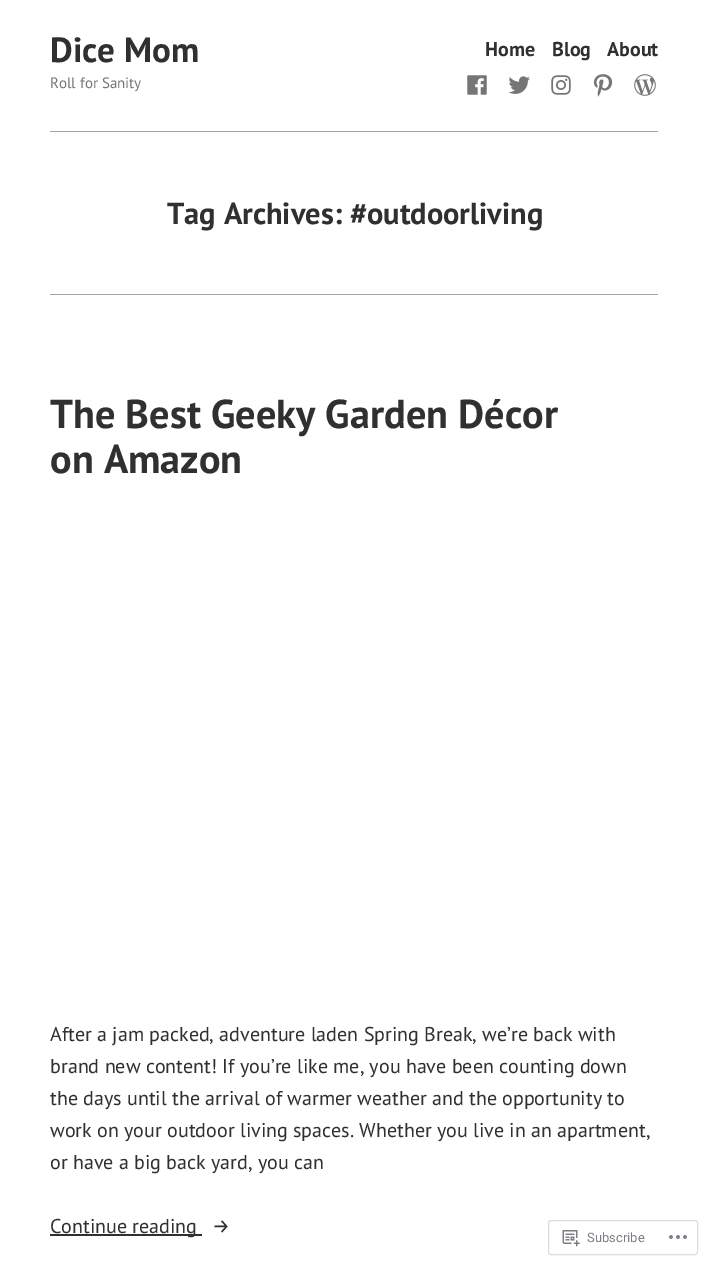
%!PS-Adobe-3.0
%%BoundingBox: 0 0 708 1265
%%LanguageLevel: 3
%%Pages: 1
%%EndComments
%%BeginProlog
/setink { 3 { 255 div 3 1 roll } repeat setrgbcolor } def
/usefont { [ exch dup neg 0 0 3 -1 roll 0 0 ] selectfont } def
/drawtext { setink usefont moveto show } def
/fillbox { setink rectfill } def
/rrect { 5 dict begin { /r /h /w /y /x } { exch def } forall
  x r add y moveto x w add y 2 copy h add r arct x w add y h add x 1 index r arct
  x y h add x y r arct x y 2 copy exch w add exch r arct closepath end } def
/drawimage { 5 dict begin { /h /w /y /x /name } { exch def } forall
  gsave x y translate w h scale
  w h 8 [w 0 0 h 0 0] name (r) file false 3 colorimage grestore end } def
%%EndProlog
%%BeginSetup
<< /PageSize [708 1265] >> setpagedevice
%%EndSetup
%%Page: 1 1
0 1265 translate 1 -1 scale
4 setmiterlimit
0 0 708 1265 255 255 255 fillbox
(Dice Mom) 50 62 /PTSans-Bold 35 48 48 48 drawtext
(Home) 485 56 /PTSans-Bold 20 48 48 48 drawtext
(Blog) 552 56 /PTSans-Bold 20 48 48 48 drawtext
(About) 607 56 /PTSans-Bold 20 48 48 48 drawtext
(Roll for Sanity) 50 88 /PTSans-Regular 15 117 117 117 drawtext
(assets/img1.rgb) 467 75 20 20 drawimage
(assets/img2.rgb) 508 76 22 18 drawimage
(assets/img3.rgb) 551 75 20 20 drawimage
(assets/img4.rgb) 593 74 20 23 drawimage
(assets/img5.rgb) 634 74 22 22 drawimage
50 131 608 1 165 165 165 fillbox
(Tag Archives: #outdoorliving) 167 224 /PTSans-Bold 30.5 48 48 48 drawtext
50 294 608 1 165 165 165 fillbox
(The Best Geeky Garden Décor) 50 428 /PTSans-Bold 40.25 48 48 48 drawtext
(on Amazon) 50 473 /PTSans-Bold 40.25 48 48 48 drawtext
(After a jam packed, adventure laden Spring Break, we’re back with) 50 1041 /PTSans-Regular 20 48 48 48 drawtext
(brand new content! If you’re like me, you have been counting down) 50 1073 /PTSans-Regular 20 48 48 48 drawtext
(the days until the arrival of warmer weather and the opportunity to) 50 1105 /PTSans-Regular 20 48 48 48 drawtext
(work on your outdoor living spaces. Whether you live in an apartment,) 50 1137 /PTSans-Regular 20 48 48 48 drawtext
(or have a big back yard, you can) 50 1169 /PTSans-Regular 20 48 48 48 drawtext
50 1234 152 2 48 48 48 fillbox
(Continue reading) 50 1233 /PTSans-Regular 20 48 48 48 drawtext
(→) 212 1233 /FiraSans-Regular 20 48 48 48 drawtext
221 221 223 setink
548.5 1220.5 149 34 2.5 rrect stroke
(assets/img6.rgb) 562 1230 18 17 drawimage
(Subscribe) 587 1242 /Roboto-Regular 13 123 127 133 drawtext
(assets/img7.rgb) 669 1235 18 4 drawimage
showpage
%%EOF
